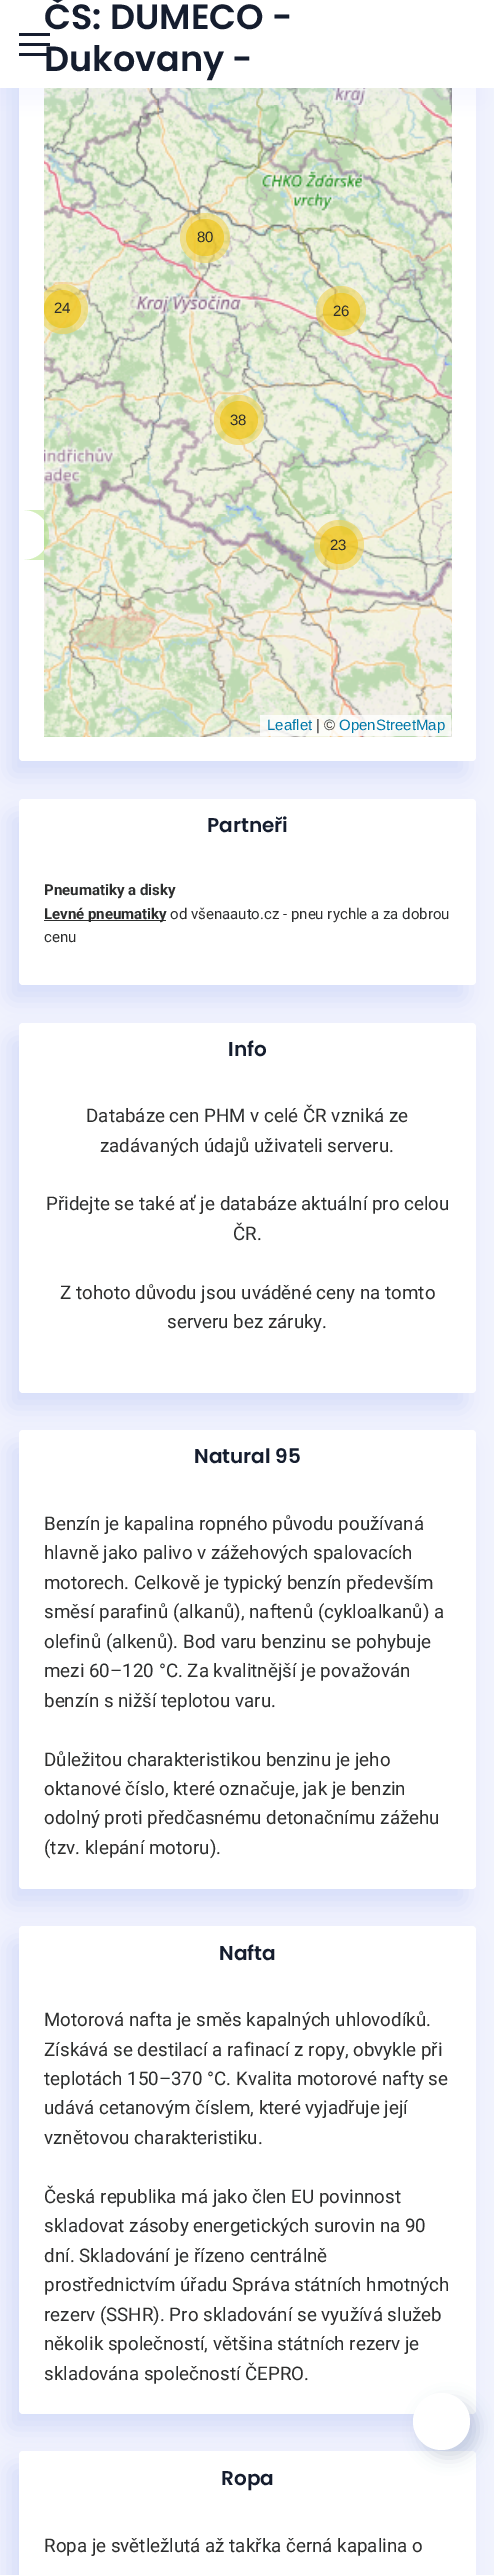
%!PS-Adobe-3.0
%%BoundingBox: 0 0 494 2575
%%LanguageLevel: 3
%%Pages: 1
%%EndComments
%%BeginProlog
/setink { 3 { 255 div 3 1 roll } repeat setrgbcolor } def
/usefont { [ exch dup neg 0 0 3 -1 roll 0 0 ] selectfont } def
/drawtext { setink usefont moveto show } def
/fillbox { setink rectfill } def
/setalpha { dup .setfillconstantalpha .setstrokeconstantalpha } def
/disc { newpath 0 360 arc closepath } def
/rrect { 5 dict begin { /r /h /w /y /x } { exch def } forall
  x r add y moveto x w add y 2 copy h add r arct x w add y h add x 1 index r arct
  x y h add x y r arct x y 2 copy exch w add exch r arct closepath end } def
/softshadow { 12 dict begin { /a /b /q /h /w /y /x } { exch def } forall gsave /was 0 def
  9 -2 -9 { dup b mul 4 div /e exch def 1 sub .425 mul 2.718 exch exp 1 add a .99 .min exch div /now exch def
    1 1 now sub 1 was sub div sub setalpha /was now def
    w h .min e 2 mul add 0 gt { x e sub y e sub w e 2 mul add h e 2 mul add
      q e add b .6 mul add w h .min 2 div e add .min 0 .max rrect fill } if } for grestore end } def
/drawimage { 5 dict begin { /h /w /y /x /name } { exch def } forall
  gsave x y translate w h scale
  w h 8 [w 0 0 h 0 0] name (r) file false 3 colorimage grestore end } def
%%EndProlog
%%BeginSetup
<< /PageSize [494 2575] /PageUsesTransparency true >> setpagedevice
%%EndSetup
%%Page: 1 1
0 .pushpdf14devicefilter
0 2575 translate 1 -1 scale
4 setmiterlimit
0 0 494 2575 241 243 253 fillbox
209 218 249 setink
9 -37 457 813 4 11 0.8 softshadow
255 255 255 setink
19 -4 457 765 4 rrect fill
(assets/img1.rgb) 44 88 115 17 drawimage
(assets/img2.rgb) 159 88 293 17 drawimage
(assets/img3.rgb) 44 105 115 409 drawimage
(assets/img4.rgb) 159 105 293 409 drawimage
209 218 249 setink
-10 15 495 88 0 11 0.2 softshadow
0 0 494 88 255 255 255 fillbox
19 33 31 3 21 29 46 fillbox
19 53 31 3 21 29 46 fillbox
19 43 31 3 21 29 46 fillbox
(ČS: DUMECO -) 44 29 /Poppins-SemiBold 35 21 29 46 drawtext
(Dukovany -) 44 71 /Poppins-SemiBold 35 21 29 46 drawtext
(assets/img5.rgb) 44 514 115 223 drawimage
(assets/img6.rgb) 159 514 293 223 drawimage
0.6 setalpha
241 211 87 setink
205 238 25 disc fill
240 194 12 setink
186 219 38 37 18.5 rrect fill
1 setalpha
(80) 197 242 /LiberationSans-Regular 15 45 46 46 drawtext
gsave
44 0 407 736 rectclip
0.6 setalpha
241 211 87 setink
63 309 25 disc fill
grestore
0.6 setalpha
240 194 12 setink
44 290 37 38 18.5 rrect fill
1 setalpha
(24) 54 313 /LiberationSans-Regular 15 45 46 46 drawtext
0.6 setalpha
241 211 87 setink
341 311 25 disc fill
240 194 12 setink
341.5 311.5 18.5 disc fill
1 setalpha
(26) 333 316 /LiberationSans-Regular 15 45 46 46 drawtext
0.6 setalpha
241 211 87 setink
239 420 25 disc fill
240 194 12 setink
239 420 19 disc fill
1 setalpha
(38) 230 425 /LiberationSans-Regular 15 45 46 46 drawtext
0.6 setalpha
181 226 140 setink
44 510 moveto 24 510 lineto 38 510 49 521 49 535 curveto 49 549 38 560 24 560 curveto 44 560 lineto closepath fill
241 211 87 setink
339 545 25 disc fill
240 194 12 setink
339 545 19 disc fill
1 setalpha
(23) 330 550 /LiberationSans-Regular 15 45 46 46 drawtext
0.8 setalpha
260 715 191 21 255 255 255 fillbox
1 setalpha
(Leaflet) 267 730 /LiberationSans-Regular 15 0 120 168 drawtext
(| ©) 316 730 /LiberationSans-Regular 15 51 51 51 drawtext
(OpenStreetMap) 339 730 /LiberationSans-Regular 15 0 120 168 drawtext
209 218 249 setink
9 814 457 186 4 11 0.8 softshadow
255 255 255 setink
19 799 457 186 4 rrect fill
(Partneři) 207 832 /Poppins-SemiBold 20 21 29 46 drawtext
(Pneumatiky a disky) 44 895 /Roboto-Bold 15 45 46 46 drawtext
44 920 122 1 45 46 46 fillbox
(Levné pneumatiky) 44 919 /Roboto-Bold 15 45 46 46 drawtext
(od všenaauto.cz - pneu rychle a za dobrou) 170 919 /Roboto-Regular 15 45 46 46 drawtext
(cenu) 44 942 /Roboto-Regular 15 45 46 46 drawtext
209 218 249 setink
9 1038 457 370 4 11 0.8 softshadow
255 255 255 setink
19 1023 457 370 4 rrect fill
(Info) 228 1056 /Poppins-SemiBold 20 21 29 46 drawtext
(Databáze cen PHM v celé ČR vzniká ze) 86 1122 /Roboto-Regular 18.75 45 46 46 drawtext
(zadávaných údajů uživateli serveru.) 100 1152 /Roboto-Regular 18.75 45 46 46 drawtext
(Přidejte se také ať je databáze aktuální pro celou) 46 1210 /Roboto-Regular 18.75 45 46 46 drawtext
(ČR.) 233 1240 /Roboto-Regular 18.75 45 46 46 drawtext
(Z tohoto důvodu jsou uváděné ceny na tomto) 60 1299 /Roboto-Regular 18.75 45 46 46 drawtext
(serveru bez záruky.) 167 1328 /Roboto-Regular 18.75 45 46 46 drawtext
209 218 249 setink
9 1445 457 459 4 11 0.8 softshadow
255 255 255 setink
19 1430 457 459 4 rrect fill
(Natural 95) 194 1463 /Poppins-SemiBold 20 21 29 46 drawtext
(Benzín je kapalina ropného původu používaná) 44 1530 /Roboto-Regular 18.75 45 46 46 drawtext
(hlavně jako palivo v zážehových spalovacích) 44 1559 /Roboto-Regular 18.75 45 46 46 drawtext
(motorech. Celkově je typický benzín především) 44 1589 /Roboto-Regular 18.75 45 46 46 drawtext
(směsí parafinů \(alkanů\), naftenů \(cykloalkanů\) a) 44 1618 /Roboto-Regular 18.75 45 46 46 drawtext
(olefinů \(alkenů\). Bod varu benzinu se pohybuje) 44 1648 /Roboto-Regular 18.75 45 46 46 drawtext
(mezi 60–120 °C. Za kvalitnější je považován) 44 1677 /Roboto-Regular 18.75 45 46 46 drawtext
(benzín s nižší teplotou varu.) 44 1707 /Roboto-Regular 18.75 45 46 46 drawtext
(Důležitou charakteristikou benzinu je jeho) 44 1766 /Roboto-Regular 18.75 45 46 46 drawtext
(oktanové číslo, které označuje, jak je benzin) 44 1795 /Roboto-Regular 18.75 45 46 46 drawtext
(odolný proti předčasnému detonačnímu zážehu) 44 1824 /Roboto-Regular 18.75 45 46 46 drawtext
(\(tzv. klepání motoru\).) 44 1854 /Roboto-Regular 18.75 45 46 46 drawtext
209 218 249 setink
9 1941 457 488 4 11 0.8 softshadow
255 255 255 setink
19 1926 457 488 4 rrect fill
(Nafta) 219 1960 /Poppins-SemiBold 20 21 29 46 drawtext
(Motorová nafta je směs kapalných uhlovodíků.) 44 2026 /Roboto-Regular 18.75 45 46 46 drawtext
(Získává se destilací a rafinací z ropy, obvykle při) 44 2056 /Roboto-Regular 18.75 45 46 46 drawtext
(teplotách 150–370 °C. Kvalita motorové nafty se) 44 2085 /Roboto-Regular 18.75 45 46 46 drawtext
(udává cetanovým číslem, které vyjadřuje její) 44 2114 /Roboto-Regular 18.75 45 46 46 drawtext
(vznětovou charakteristiku.) 44 2144 /Roboto-Regular 18.75 45 46 46 drawtext
(Česká republika má jako člen EU povinnost) 44 2203 /Roboto-Regular 18.75 45 46 46 drawtext
(skladovat zásoby energetických surovin na 90) 44 2232 /Roboto-Regular 18.75 45 46 46 drawtext
(dní. Skladování je řízeno centrálně) 44 2262 /Roboto-Regular 18.75 45 46 46 drawtext
(prostřednictvím úřadu Správa státních hmotných) 44 2291 /Roboto-Regular 18.75 45 46 46 drawtext
(rezerv \(SSHR\). Pro skladování se využívá služeb) 44 2321 /Roboto-Regular 18.75 45 46 46 drawtext
(několik společností, většina státních rezerv je) 44 2350 /Roboto-Regular 18.75 45 46 46 drawtext
(skladována společností ČEPRO.) 44 2380 /Roboto-Regular 18.75 45 46 46 drawtext
209 218 249 setink
9 2466 457 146 4 11 0.8 softshadow
255 255 255 setink
19 2451 457 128 4 rrect fill
(Ropa) 221 2485 /Poppins-SemiBold 20 21 29 46 drawtext
(Ropa je světležlutá až takřka černá kapalina o) 44 2552 /Roboto-Regular 18.75 45 46 46 drawtext
42 67 113 setink
420 2400 58 58 29 8 0.2 softshadow
255 255 255 setink
441.5 2421.5 28.5 disc fill
.poppdf14devicefilter showpage
%%EOF
